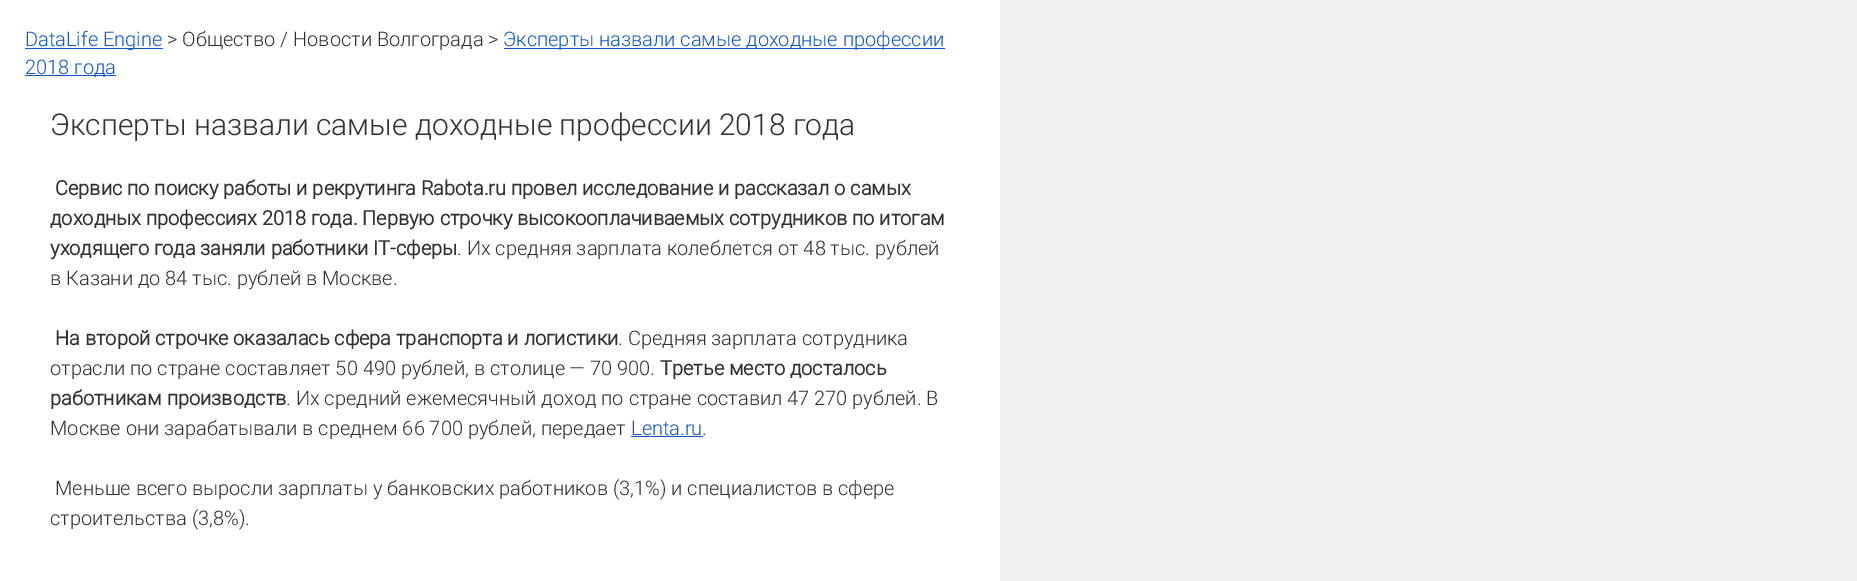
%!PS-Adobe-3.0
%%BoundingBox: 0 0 1857 581
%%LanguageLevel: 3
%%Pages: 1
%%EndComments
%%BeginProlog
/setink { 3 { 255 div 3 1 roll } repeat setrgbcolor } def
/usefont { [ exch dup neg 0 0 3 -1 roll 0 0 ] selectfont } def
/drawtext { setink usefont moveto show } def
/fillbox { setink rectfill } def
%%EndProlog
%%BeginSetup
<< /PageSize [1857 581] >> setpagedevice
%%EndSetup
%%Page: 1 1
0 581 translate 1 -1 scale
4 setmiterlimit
0 0 1857 581 241 241 241 fillbox
0 0 1000 581 255 255 255 fillbox
25 48 138 1 17 85 204 fillbox
(DataLife Engine) 25 46 /Roboto-Light 20 17 85 204 drawtext
(> Общество / Новости Волгограда >) 167 46 /Roboto-Light 20 48 48 48 drawtext
504 48 441 1 17 85 204 fillbox
(Эксперты назвали самые доходные профессии) 503 46 /Roboto-Light 20 17 85 204 drawtext
25 75 91 1 17 85 204 fillbox
(2018 года) 25 74 /Roboto-Light 20 17 85 204 drawtext
(Эксперты назвали самые доходные профессии 2018 года) 50 135 /Roboto-Light 30 48 48 48 drawtext
(Сервис по поиску работы и рекрутинга Rabota.ru провел исследование и рассказал о самых) 55 195 /Roboto-Bold 20 48 48 48 drawtext
(доходных профессиях 2018 года. Первую строчку высокооплачиваемых сотрудников по итогам) 50 225 /Roboto-Bold 20 48 48 48 drawtext
(уходящего года заняли работники IT-сферы) 50 255 /Roboto-Bold 20 48 48 48 drawtext
(. Их средняя зарплата колеблется от 48 тыс. рублей) 457 255 /Roboto-Light 20 48 48 48 drawtext
(в Казани до 84 тыс. рублей в Москве.) 50 285 /Roboto-Light 20 48 48 48 drawtext
(На второй строчке оказалась сфера транспорта и логистики) 55 345 /Roboto-Bold 20 48 48 48 drawtext
(. Средняя зарплата сотрудника) 618 345 /Roboto-Light 20 48 48 48 drawtext
(отрасли по стране составляет 50 490 рублей, в столице — 70 900.) 50 375 /Roboto-Light 20 48 48 48 drawtext
(Третье место досталось) 660 375 /Roboto-Bold 20 48 48 48 drawtext
(работникам производств) 50 405 /Roboto-Bold 20 48 48 48 drawtext
(. Их средний ежемесячный доход по стране составил 47 270 рублей. В) 286 405 /Roboto-Light 20 48 48 48 drawtext
(Москве они зарабатывали в среднем 66 700 рублей, передает) 50 435 /Roboto-Light 20 48 48 48 drawtext
(Lenta.ru) 631 435 /Roboto-Light 20 17 85 204 drawtext
631 436 72 1 17 85 204 fillbox
(.) 702 435 /Roboto-Light 20 48 48 48 drawtext
(Меньше всего выросли зарплаты у банковских работников \(3,1%\) и специалистов в сфере) 55 495 /Roboto-Light 20 48 48 48 drawtext
(строительства \(3,8%\).) 50 525 /Roboto-Light 20 48 48 48 drawtext
showpage
%%EOF
